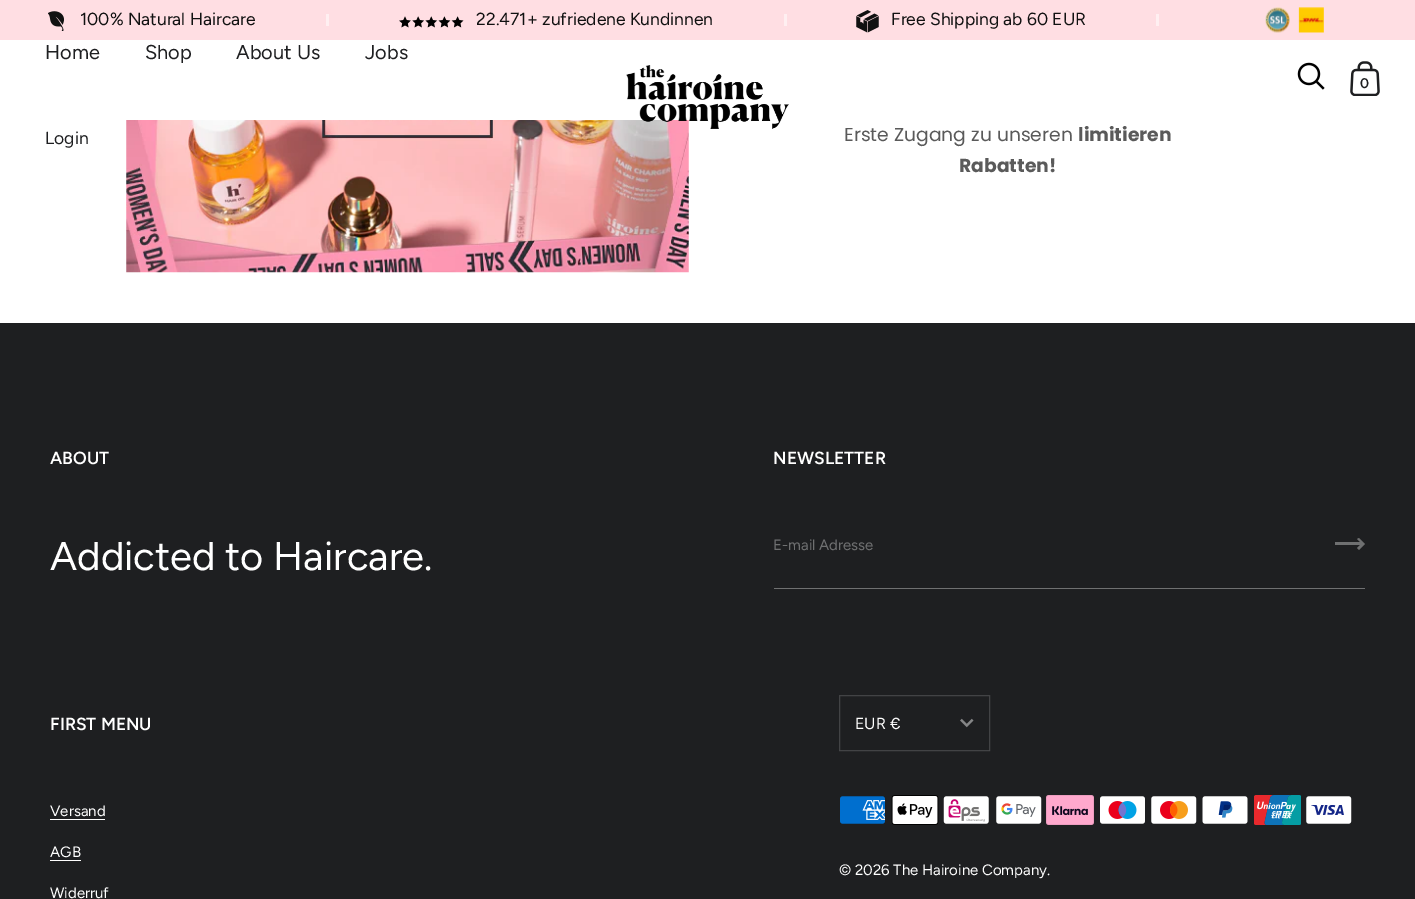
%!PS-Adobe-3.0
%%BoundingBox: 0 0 1415 899
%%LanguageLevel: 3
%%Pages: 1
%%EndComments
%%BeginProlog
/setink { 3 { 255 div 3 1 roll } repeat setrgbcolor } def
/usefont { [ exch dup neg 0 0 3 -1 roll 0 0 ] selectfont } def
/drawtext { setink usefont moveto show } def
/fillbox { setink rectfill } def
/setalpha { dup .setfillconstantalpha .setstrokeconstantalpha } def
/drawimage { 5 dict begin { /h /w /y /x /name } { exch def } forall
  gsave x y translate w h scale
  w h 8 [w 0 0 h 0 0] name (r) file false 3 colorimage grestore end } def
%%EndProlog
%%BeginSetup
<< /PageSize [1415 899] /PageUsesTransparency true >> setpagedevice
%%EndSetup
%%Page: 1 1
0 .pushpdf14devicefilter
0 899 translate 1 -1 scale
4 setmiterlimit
0 0 1415 899 255 255 255 fillbox
0 0 1415 40 255 222 227 fillbox
(assets/img1.rgb) 48 11 16 20 drawimage
(100% Natural Haircare) 80 25 /Figtree-Regular 17.5 17 17 17 drawtext
326 14 3 12 255 239 241 fillbox
(assets/img2.rgb) 399 16 65 12 drawimage
(22.471+ zufriedene Kundinnen) 476 25 /Figtree-Regular 17.5 17 17 17 drawtext
784 14 3 12 255 239 241 fillbox
(assets/img3.rgb) 856 10 23 23 drawimage
(Free Shipping ab 60 EUR) 891 25 /Figtree-Regular 17.5 17 17 17 drawtext
1156 14 3 12 255 239 241 fillbox
(assets/img4.rgb) 1265 7 59 26 drawimage
(Home) 45 59 /Figtree-Regular 20 30 31 33 drawtext
(Shop) 145 59 /Figtree-Regular 20 30 31 33 drawtext
(About Us) 236 59 /Figtree-Regular 20 30 31 33 drawtext
(Jobs) 365 59 /Figtree-Regular 20 30 31 33 drawtext
(Login) 45 144 /Figtree-Regular 17.5 30 31 33 drawtext
(assets/img8.rgb) 126 120 563 153 drawimage
(assets/img5.rgb) 626 65 163 64 drawimage
(assets/img6.rgb) 1297 62 28 28 drawimage
(assets/img7.rgb) 1350 61 30 35 drawimage
(0) 1360 88 /Figtree-SemiBold 14 30 31 33 drawtext
(Erste Zugang zu unseren) 844 141 /Poppins-Regular 18.75 90 90 90 drawtext
(limitieren) 1078 141 /Poppins-Bold 18.75 90 90 90 drawtext
(Rabatten!) 959 172 /Poppins-Bold 18.75 90 90 90 drawtext
0 323 1415 576 30 31 33 fillbox
(ABOUT) 50 464 /Figtree-SemiBold 17.5 255 255 255 drawtext
(Addicted to Haircare.) 50 570 /Figtree-Regular 40 255 255 255 drawtext
(NEWSLETTER) 773 464 /Figtree-SemiBold 17.5 255 255 255 drawtext
774 588 591 1 111 112 113 fillbox
(E-mail Adresse) 773 550 /Figtree-Regular 15 111 112 113 drawtext
gsave
1335 538 30 13 rectclip
1360 545 moveto 1357 548 lineto 1359 550 lineto 1365 544 lineto 1359 538 lineto 1357 539 lineto 1360 542 lineto 1322 542 lineto 1322 545 lineto closepath eofill
grestore
(FIRST MENU) 50 730 /Figtree-SemiBold 17.5 255 255 255 drawtext
(Versand) 50 816 /Figtree-Regular 15 255 255 255 drawtext
50 819 55 1 255 255 255 fillbox
(AGB) 50 857 /Figtree-Regular 15 255 255 255 drawtext
50 860 31 1 255 255 255 fillbox
(Widerruf) 50 898 /Figtree-Regular 15 255 255 255 drawtext
66 67 69 setink
839.5 695.5 150 55 rectstroke
(EUR €) 855 729 /Figtree-Regular 16 255 255 255 drawtext
(assets/img9.rgb) 960 718 14 10 drawimage
839 750 151 1 30 31 33 fillbox
66 67 69 setink
990 750 moveto 990 751 lineto 989 750 lineto closepath fill
0.16 setalpha
255 255 255 setink
990 751 moveto 839 751 lineto 840 750 lineto 989 750 lineto closepath fill
1 setalpha
81 82 83 setink
839 751 moveto 839 750 lineto 840 750 lineto closepath fill
(assets/img10.rgb) 840 796 45 28 drawimage
(assets/img11.rgb) 891 795 48 30 drawimage
(assets/img12.rgb) 943 796 46 28 drawimage
(assets/img13.rgb) 996 796 46 28 drawimage
(assets/img14.rgb) 1046 795 48 30 drawimage
(assets/img15.rgb) 1100 796 45 28 drawimage
(assets/img16.rgb) 1151 796 46 28 drawimage
(assets/img17.rgb) 1202 796 46 28 drawimage
(assets/img18.rgb) 1254 795 47 30 drawimage
(assets/img19.rgb) 1306 796 46 28 drawimage
(© 2026 The Hairoine Company.) 839 875 /Figtree-Regular 15 255 255 255 drawtext
.poppdf14devicefilter showpage
%%EOF
